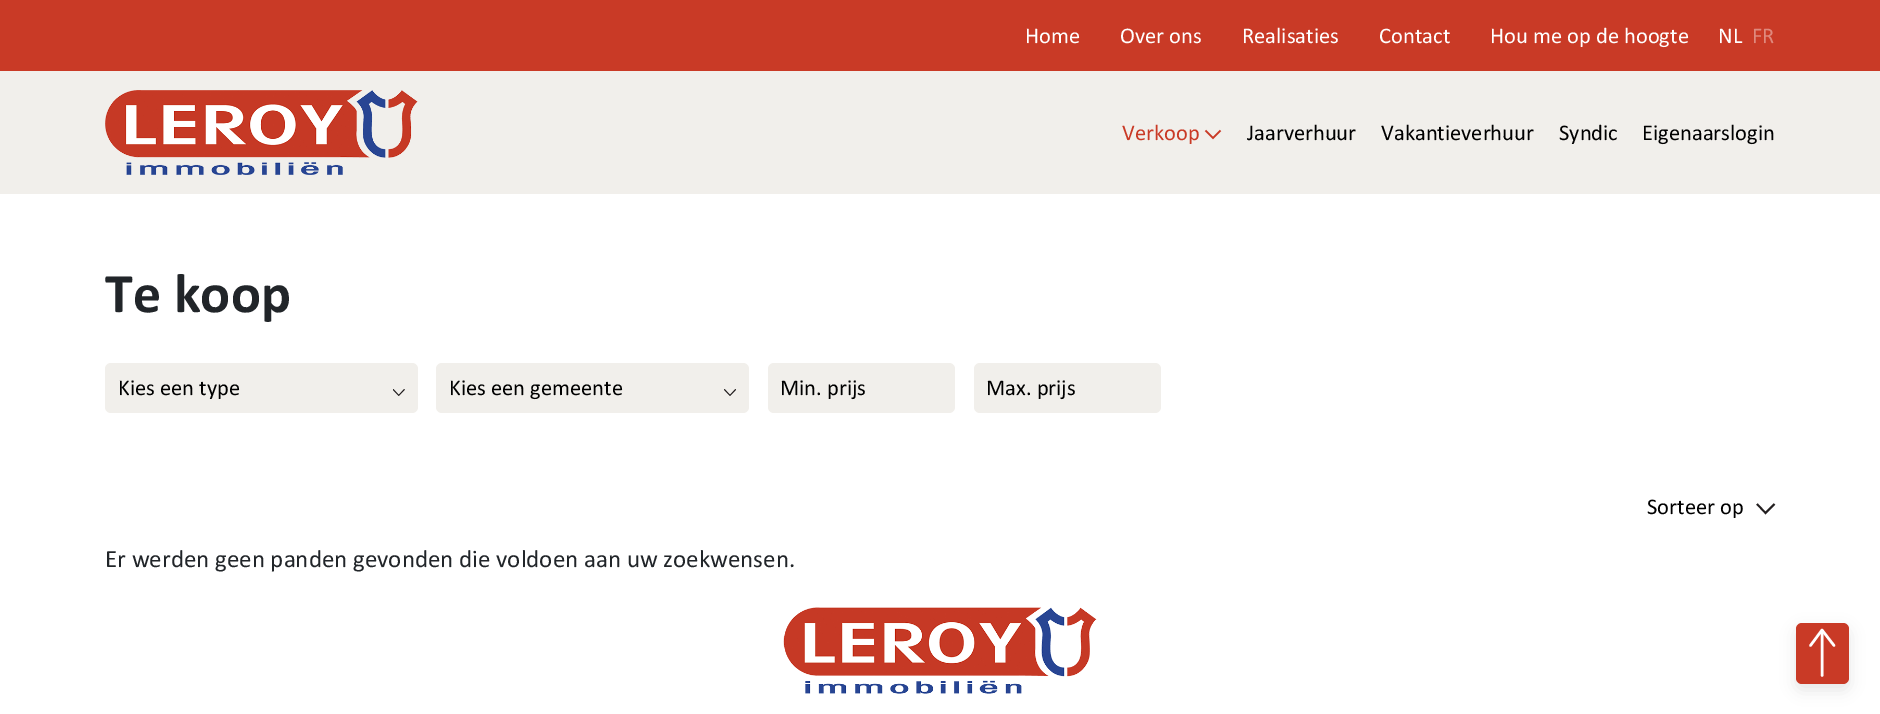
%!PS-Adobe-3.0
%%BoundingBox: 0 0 1880 714
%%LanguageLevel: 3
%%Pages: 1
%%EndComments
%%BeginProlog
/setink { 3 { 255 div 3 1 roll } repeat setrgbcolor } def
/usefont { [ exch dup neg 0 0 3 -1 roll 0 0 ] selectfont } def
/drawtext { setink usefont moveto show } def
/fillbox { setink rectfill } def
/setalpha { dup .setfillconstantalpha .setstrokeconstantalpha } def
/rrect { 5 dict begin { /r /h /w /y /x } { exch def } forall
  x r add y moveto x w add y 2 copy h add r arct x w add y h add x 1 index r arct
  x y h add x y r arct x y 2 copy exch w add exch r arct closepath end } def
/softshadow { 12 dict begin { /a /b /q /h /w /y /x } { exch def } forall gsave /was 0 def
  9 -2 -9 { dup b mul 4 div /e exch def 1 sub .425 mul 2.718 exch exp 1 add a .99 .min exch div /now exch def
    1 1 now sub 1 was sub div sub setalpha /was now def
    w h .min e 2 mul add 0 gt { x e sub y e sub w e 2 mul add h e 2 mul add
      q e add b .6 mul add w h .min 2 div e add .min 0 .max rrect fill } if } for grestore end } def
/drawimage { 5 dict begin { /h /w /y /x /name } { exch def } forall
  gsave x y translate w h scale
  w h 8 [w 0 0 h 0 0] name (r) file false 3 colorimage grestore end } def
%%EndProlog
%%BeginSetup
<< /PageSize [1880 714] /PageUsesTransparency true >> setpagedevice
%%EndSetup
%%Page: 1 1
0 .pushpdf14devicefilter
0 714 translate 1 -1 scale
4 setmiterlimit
0 0 1880 714 255 255 255 fillbox
0 0 1880 71 201 58 38 fillbox
(Home) 1025 43 /Calibri-Regular 22.5 255 255 255 drawtext
(Over ons) 1120 43 /Calibri-Regular 22.5 255 255 255 drawtext
(Realisaties) 1242 43 /Calibri-Regular 22.5 255 255 255 drawtext
(Contact) 1379 43 /Calibri-Regular 22.5 255 255 255 drawtext
(Hou me op de hoogte) 1490 43 /Calibri-Regular 22.5 255 255 255 drawtext
(NL) 1718 43 /Calibri-Regular 22.5 255 255 255 drawtext
(FR) 1752 43 /Calibri-Regular 22.5 223 137 125 drawtext
0 71 1880 123 241 239 235 fillbox
(assets/img1.rgb) 105 90 313 85 drawimage
(Verkoop) 1122 140 /Calibri-Regular 22.5 201 58 38 drawtext
1.6 setlinewidth
1220.5 130.5 moveto 1213 138 lineto 1205.5 130.5 lineto stroke
(Jaarverhuur) 1247 140 /Calibri-Regular 22.5 0 0 0 drawtext
(Vakantieverhuur) 1381 140 /Calibri-Regular 22.5 0 0 0 drawtext
(Syndic) 1559 140 /Calibri-Regular 22.5 0 0 0 drawtext
(Eigenaarslogin) 1642 140 /Calibri-Regular 22.5 0 0 0 drawtext
(Te koop) 105 312 /Calibri-Bold 56 33 37 41 drawtext
241 239 235 setink
105 363 313 50 6 rrect fill
(Kies een type) 118 395 /Calibri-Regular 22.5 0 0 0 drawtext
(assets/img2.rgb) 393 389 12 7 drawimage
241 239 235 setink
436 363 313 50 6 rrect fill
(Kies een gemeente) 449 395 /Calibri-Regular 22.5 0 0 0 drawtext
(assets/img3.rgb) 724 389 12 7 drawimage
241 239 235 setink
768 363 187 50 6 rrect fill
(Min. prijs) 780 395 /Calibri-Regular 22.5 0 0 0 drawtext
241 239 235 setink
974 363 187 50 6 rrect fill
(Max. prijs) 986 395 /Calibri-Regular 22.5 0 0 0 drawtext
(Sorteer op) 1647 514 /Calibri-Regular 22.5 0 0 0 drawtext
35 31 32 setink
1.8 setlinewidth
1774.5 504 moveto 1765.5 513 lineto 1757 504 lineto stroke
(Er werden geen panden gevonden die voldoen aan uw zoekwensen.) 105 567 /Calibri-Regular 25 33 37 41 drawtext
0 0 0 setink
1796 629 53 61 6 7.5 0.1 softshadow
201 58 38 setink
1796 623 53 61 6 rrect fill
255 255 255 setink
2.5 setlinewidth
1 setlinecap
1 setlinejoin
1834 645.5 moveto 1822 630 lineto 1810.5 645.5 lineto stroke
0 setlinejoin
1822 675.5 moveto 1822 632 lineto stroke
(assets/img4.rgb) 783 607 314 87 drawimage
.poppdf14devicefilter showpage
%%EOF
